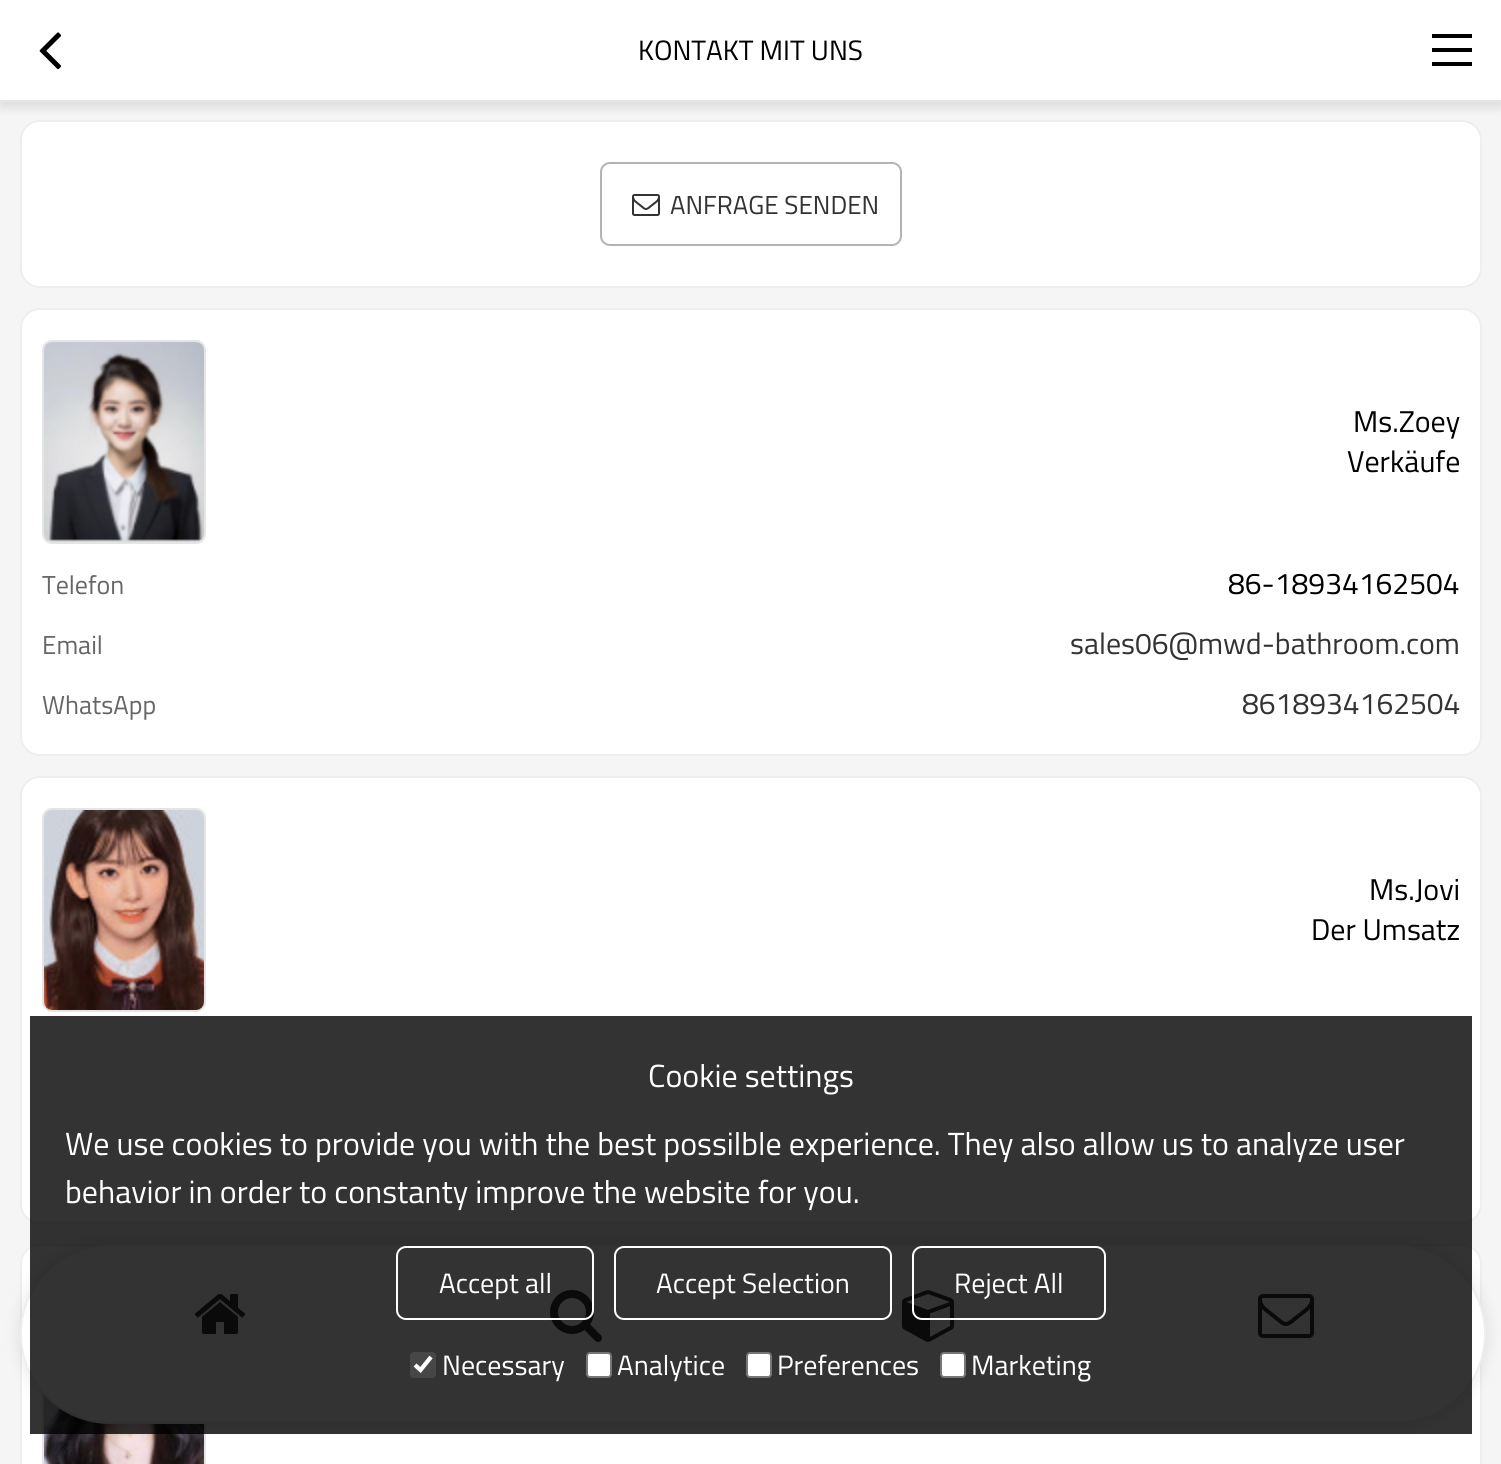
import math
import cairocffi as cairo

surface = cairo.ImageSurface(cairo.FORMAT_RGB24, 1501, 1464)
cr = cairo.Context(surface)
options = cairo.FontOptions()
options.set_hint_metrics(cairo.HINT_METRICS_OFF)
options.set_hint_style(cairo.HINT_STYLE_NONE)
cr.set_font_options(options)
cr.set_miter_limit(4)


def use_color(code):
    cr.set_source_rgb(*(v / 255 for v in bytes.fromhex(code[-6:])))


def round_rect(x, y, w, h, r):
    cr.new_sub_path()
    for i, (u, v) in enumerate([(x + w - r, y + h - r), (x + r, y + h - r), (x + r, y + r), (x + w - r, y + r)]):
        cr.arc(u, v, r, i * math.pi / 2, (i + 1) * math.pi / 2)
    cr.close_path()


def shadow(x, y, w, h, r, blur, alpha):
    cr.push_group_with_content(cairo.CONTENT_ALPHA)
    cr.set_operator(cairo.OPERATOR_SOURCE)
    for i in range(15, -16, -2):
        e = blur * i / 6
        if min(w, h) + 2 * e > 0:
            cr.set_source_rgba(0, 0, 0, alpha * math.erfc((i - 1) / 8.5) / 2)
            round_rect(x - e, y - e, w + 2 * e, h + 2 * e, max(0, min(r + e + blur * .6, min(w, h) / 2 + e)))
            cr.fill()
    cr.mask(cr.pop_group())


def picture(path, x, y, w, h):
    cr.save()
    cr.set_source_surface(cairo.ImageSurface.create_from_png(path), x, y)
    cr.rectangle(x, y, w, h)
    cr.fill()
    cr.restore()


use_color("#f5f5f5")
cr.paint()
use_color("#ffffff")
round_rect(21, 121, 1460, 166, 19)
cr.fill_preserve()
use_color("#eeeeee")
cr.stroke()
use_color("#000000")
shadow(0, 6, 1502, 102, 0, 5, 0.1)
use_color("#ffffff")
cr.rectangle(0, 0, 1501, 100)
cr.fill()
use_color("#e5e5e5")
cr.rectangle(0, 100, 1501, 2)
cr.fill()
picture("img1.png", 39, 32, 23, 38)
cr.select_font_face("Titillium Web")
cr.set_font_size(28)
use_color("#000000")
cr.move_to(638, 60)
cr.show_text("KONTAKT MIT UNS")
cr.rectangle(1432, 34, 40, 4)
cr.fill()
cr.rectangle(1432, 48, 40, 4)
cr.fill()
cr.rectangle(1432, 62, 40, 4)
cr.fill()
round_rect(601, 163, 300, 82, 9)
use_color("#b3b3b3")
cr.stroke()
picture("img2.png", 632, 194, 28, 22)
cr.set_font_size(26)
use_color("#333333")
cr.move_to(670, 214)
cr.show_text("ANFRAGE SENDEN")
use_color("#ffffff")
round_rect(21, 309, 1460, 446, 19)
cr.fill_preserve()
use_color("#eeeeee")
cr.stroke()
round_rect(43, 341, 162, 202, 9)
use_color("#e5e5e5")
cr.stroke()
picture("img3.png", 44, 342, 160, 200)
cr.set_font_size(30)
use_color("#000000")
cr.move_to(1353, 432)
cr.show_text("Ms.Zoey")
cr.move_to(1347, 472)
cr.show_text("Verkäufe")
cr.set_font_size(26)
use_color("#666666")
cr.move_to(42, 594)
cr.show_text("Telefon")
cr.set_font_size(30)
use_color("#000000")
cr.move_to(1228, 594)
cr.show_text("86-18934162504")
cr.set_font_size(26)
use_color("#666666")
cr.move_to(42, 654)
cr.show_text("Email")
cr.set_font_size(30)
use_color("#333333")
cr.move_to(1070, 654)
cr.show_text("sales06@mwd-bathroom.com")
cr.set_font_size(26)
use_color("#666666")
cr.move_to(42, 714)
cr.show_text("WhatsApp")
cr.set_font_size(30)
use_color("#333333")
cr.move_to(1242, 714)
cr.show_text("8618934162504")
use_color("#ffffff")
round_rect(21, 777, 1460, 446, 19)
cr.fill_preserve()
use_color("#eeeeee")
cr.stroke()
round_rect(43, 809, 162, 202, 9)
use_color("#e5e5e5")
cr.stroke()
picture("img4.png", 44, 810, 160, 200)
use_color("#000000")
cr.move_to(1369, 900)
cr.show_text("Ms.Jovi")
cr.move_to(1311, 940)
cr.show_text("Der Umsatz")
use_color("#ffffff")
round_rect(21, 1245, 1460, 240, 19)
cr.fill_preserve()
use_color("#eeeeee")
cr.stroke()
cr.rectangle(43, 1277, 162, 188)
use_color("#e5e5e5")
cr.stroke()
picture("img5.png", 44, 1395, 160, 69)
use_color("#000000")
shadow(20, 1244, 1466, 180, 90, 8, 0.1)
use_color("#ffffff")
round_rect(21, 1245, 1464, 178, 89)
cr.fill_preserve()
use_color("#eeeeee")
cr.stroke()
picture("img6.png", 194, 1293, 52, 41)
picture("img7.png", 550, 1290, 52, 52)
picture("img8.png", 902, 1290, 52, 52)
picture("img9.png", 1258, 1294, 56, 44)
cr.set_source_rgba(0, 0, 0, 0.8)
cr.rectangle(30, 1016, 1442, 418)
cr.fill()
cr.set_font_size(32)
use_color("#ffffff")
cr.move_to(648, 1087)
cr.show_text("Cookie settings")
cr.move_to(65, 1155)
cr.show_text("We use cookies to provide you with the best possilble experience. They also allow us to analyze user")
cr.move_to(65, 1203)
cr.show_text("behavior in order to constanty improve the website for you.")
round_rect(397, 1247, 196, 72, 9)
cr.stroke()
cr.set_font_size(28)
cr.move_to(439, 1293)
cr.show_text("Accept all")
round_rect(615, 1247, 276, 72, 9)
cr.stroke()
cr.move_to(656, 1293)
cr.show_text("Accept Selection")
round_rect(913, 1247, 192, 72, 9)
cr.stroke()
cr.move_to(954, 1293)
cr.show_text("Reject All")
use_color("#474747")
round_rect(410, 1352, 26, 26, 4)
cr.fill()
cr.new_path()
cr.move_to(415, 1365)
cr.line_to(420.5, 1370)
cr.line_to(431, 1357)
use_color("#ffffff")
cr.set_line_width(4.2)
cr.stroke()
cr.move_to(442, 1375)
cr.show_text("Necessary")
round_rect(587, 1353, 24, 24, 3)
cr.fill_preserve()
use_color("#767676")
cr.set_line_width(2)
cr.stroke()
use_color("#ffffff")
cr.move_to(617, 1375)
cr.show_text("Analytice")
round_rect(747, 1353, 24, 24, 3)
cr.fill_preserve()
use_color("#767676")
cr.stroke()
use_color("#ffffff")
cr.move_to(777, 1375)
cr.show_text("Preferences")
round_rect(941, 1353, 24, 24, 3)
cr.fill_preserve()
use_color("#767676")
cr.stroke()
use_color("#ffffff")
cr.move_to(971, 1375)
cr.show_text("Marketing")
surface.write_to_png("result.png")
